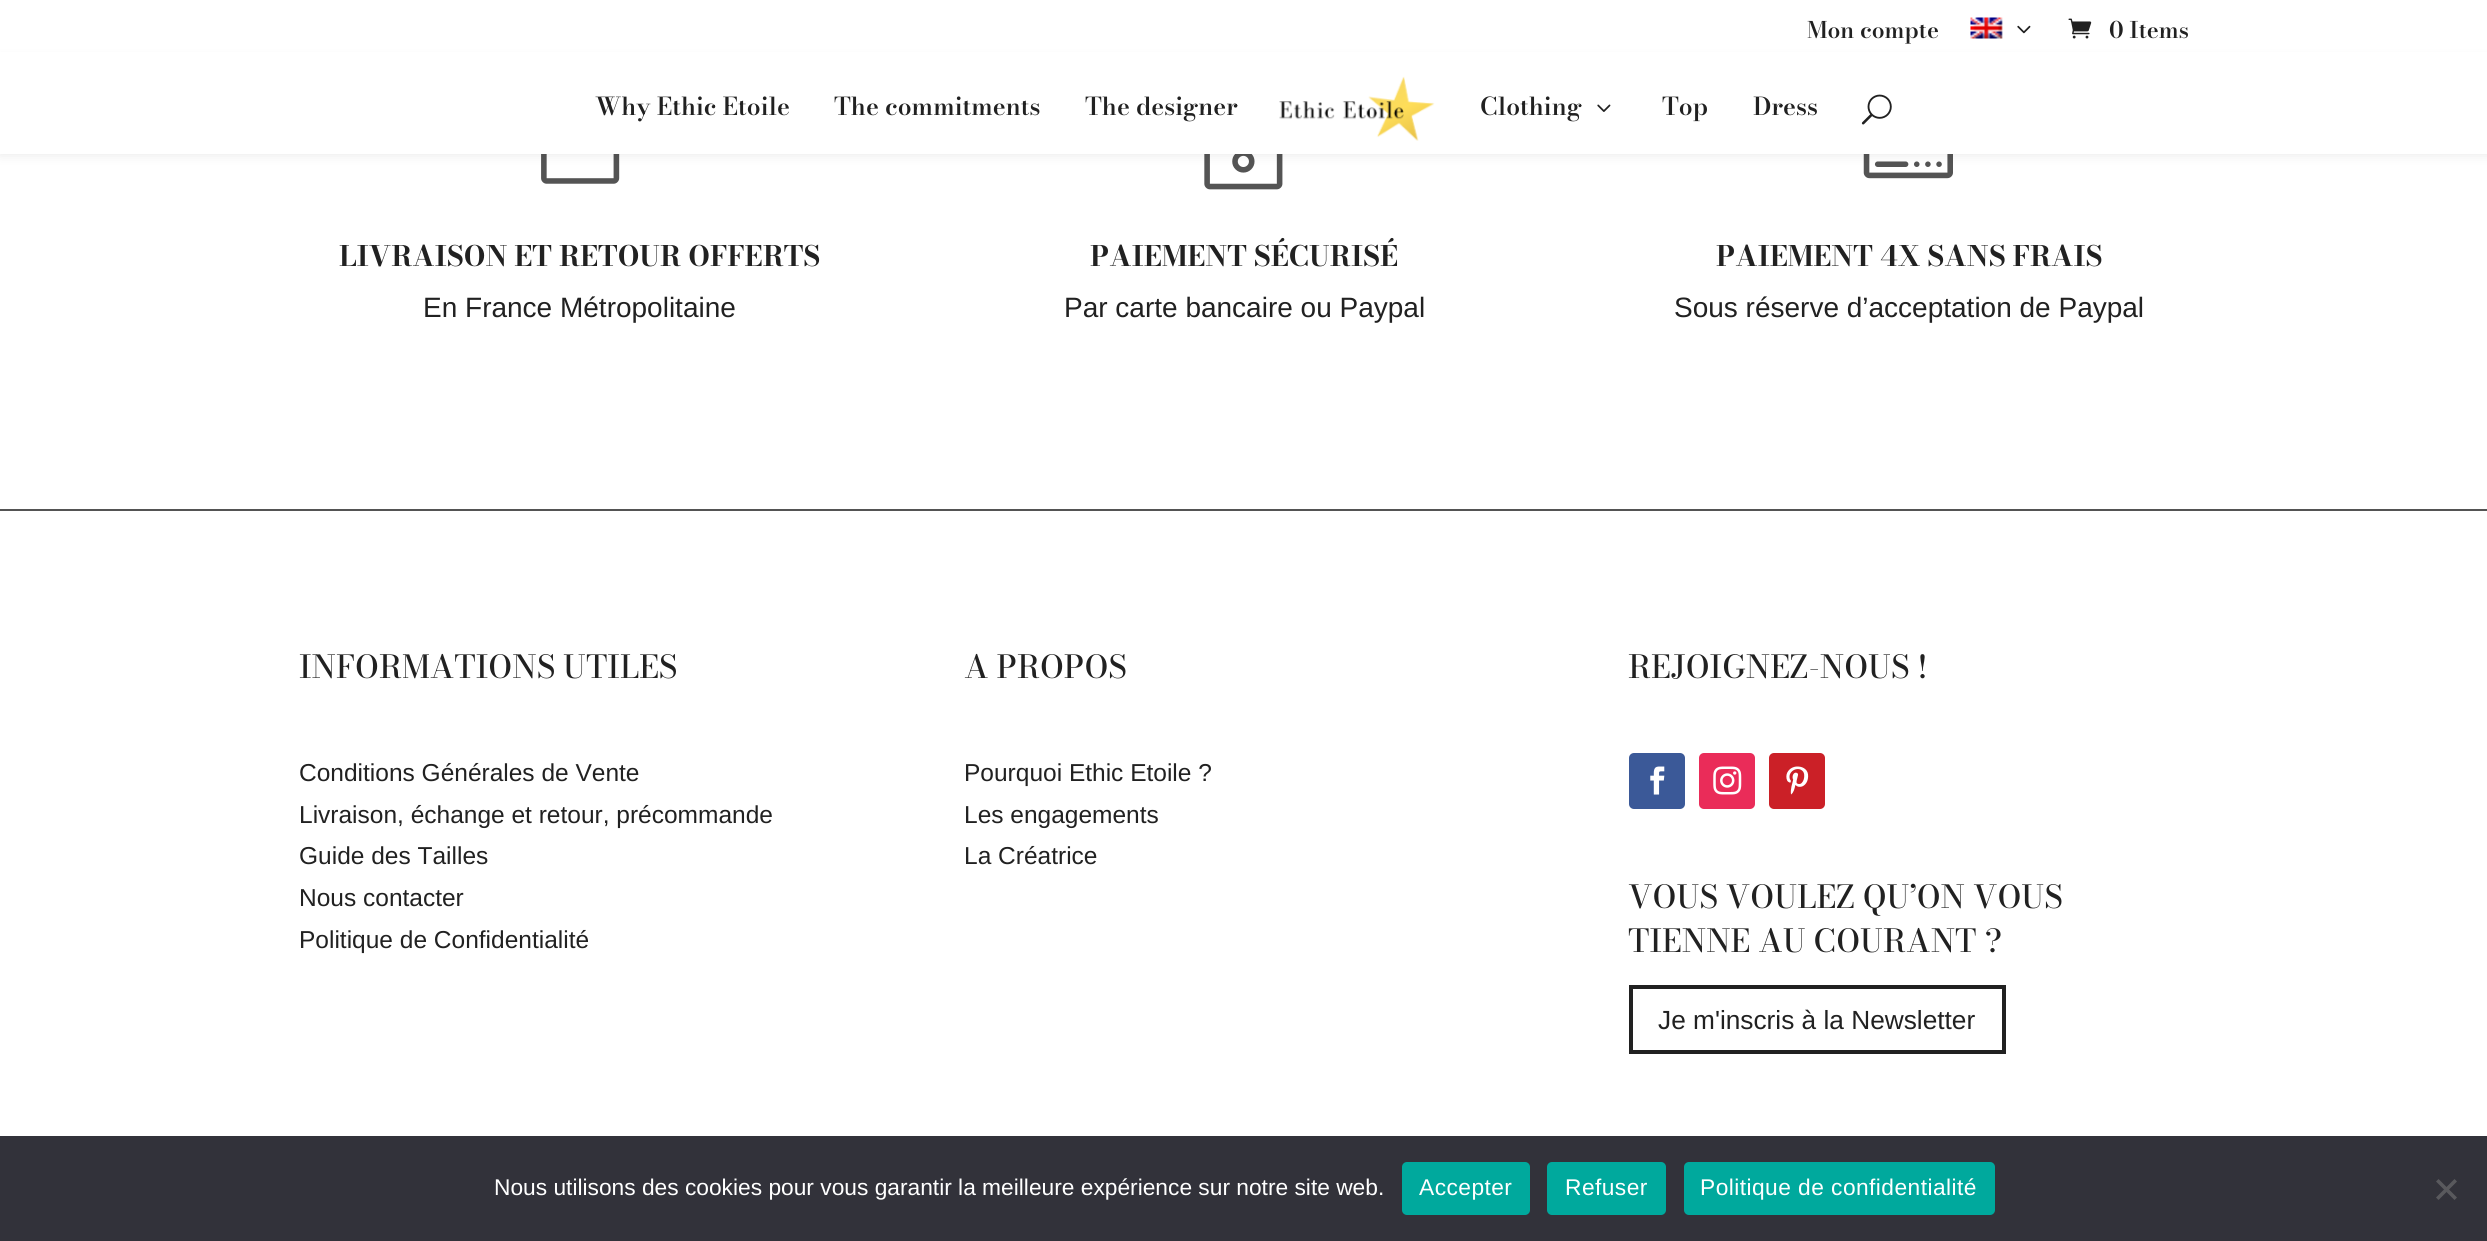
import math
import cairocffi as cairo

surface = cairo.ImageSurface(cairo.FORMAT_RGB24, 2487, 1241)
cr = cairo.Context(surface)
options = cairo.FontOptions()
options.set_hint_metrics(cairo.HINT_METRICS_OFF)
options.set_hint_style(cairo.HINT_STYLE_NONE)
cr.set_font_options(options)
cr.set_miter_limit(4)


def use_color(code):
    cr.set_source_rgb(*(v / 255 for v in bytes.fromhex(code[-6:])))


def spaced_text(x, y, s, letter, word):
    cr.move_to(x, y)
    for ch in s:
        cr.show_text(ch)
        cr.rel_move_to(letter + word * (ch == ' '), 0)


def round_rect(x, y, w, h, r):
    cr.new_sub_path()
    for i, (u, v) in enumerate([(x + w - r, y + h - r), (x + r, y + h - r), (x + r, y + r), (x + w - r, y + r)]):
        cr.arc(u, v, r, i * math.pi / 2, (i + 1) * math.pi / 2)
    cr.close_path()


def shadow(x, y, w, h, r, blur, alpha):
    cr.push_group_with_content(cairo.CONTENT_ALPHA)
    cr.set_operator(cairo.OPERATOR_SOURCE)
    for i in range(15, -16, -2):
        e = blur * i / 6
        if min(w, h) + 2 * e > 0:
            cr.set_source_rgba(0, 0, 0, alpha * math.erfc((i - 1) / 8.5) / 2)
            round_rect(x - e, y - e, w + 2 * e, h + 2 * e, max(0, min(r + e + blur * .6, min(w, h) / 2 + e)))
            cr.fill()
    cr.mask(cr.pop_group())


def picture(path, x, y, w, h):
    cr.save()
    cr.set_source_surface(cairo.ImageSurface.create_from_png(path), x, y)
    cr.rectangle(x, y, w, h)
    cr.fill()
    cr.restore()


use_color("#ffffff")
cr.paint()
picture("img7.png", 541, 154, 79, 30)
picture("img8.png", 1204, 154, 79, 36)
picture("img9.png", 1863, 154, 90, 25)
use_color("#000000")
shadow(0, 60, 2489, 94, 0, 6, 0.1)
cr.select_font_face("Bodoni Moda SemiBold")
cr.set_font_size(22.75)
use_color("#212121")
cr.move_to(1807, 38)
cr.show_text("Mon compte")
picture("img1.png", 1970, 17, 33, 22)
picture("img2.png", 2017, 25, 14, 9)
picture("img3.png", 2068, 18, 24, 21)
cr.move_to(2109, 38)
cr.show_text("0 Items")
use_color("#ffffff")
cr.rectangle(0, 52, 2487, 102)
cr.fill()
cr.set_font_size(24.5)
use_color("#212121")
cr.move_to(595, 115)
cr.show_text("Why Ethic Etoile")
cr.move_to(834, 115)
cr.show_text("The commitments")
cr.move_to(1085, 115)
cr.show_text("The designer")
picture("img4.png", 1279, 76, 156, 65)
cr.move_to(1480, 115)
cr.show_text("Clothing")
picture("img5.png", 1597, 104, 14, 8)
cr.move_to(1662, 115)
cr.show_text("Top")
cr.move_to(1753, 115)
cr.show_text("Dress")
picture("img6.png", 1861, 94, 31, 31)
use_color("#545454")
cr.rectangle(0, 509, 2487, 2)
cr.fill()
cr.select_font_face("Bodoni Moda", cairo.FONT_SLANT_NORMAL, cairo.FONT_WEIGHT_BOLD)
cr.set_font_size(28)
use_color("#212121")
cr.move_to(339, 266)
cr.show_text("LIVRAISON ET RETOUR OFFERTS")
cr.select_font_face("Liberation Sans")
cr.move_to(423, 317)
cr.show_text("En France Métropolitaine")
cr.select_font_face("Bodoni Moda", cairo.FONT_SLANT_NORMAL, cairo.FONT_WEIGHT_BOLD)
cr.move_to(1090, 266)
cr.show_text("PAIEMENT SÉCURISÉ")
cr.select_font_face("Liberation Sans")
cr.move_to(1064, 317)
cr.show_text("Par carte bancaire ou Paypal")
cr.select_font_face("Bodoni Moda", cairo.FONT_SLANT_NORMAL, cairo.FONT_WEIGHT_BOLD)
cr.move_to(1716, 266)
cr.show_text("PAIEMENT 4X SANS FRAIS")
cr.select_font_face("Liberation Sans")
cr.move_to(1674, 317)
cr.show_text("Sous réserve d’acceptation de Paypal")
cr.select_font_face("Bodoni Moda Medium")
cr.set_font_size(31.5)
cr.move_to(299, 678)
cr.show_text("INFORMATIONS UTILES")
cr.select_font_face("Liberation Sans")
cr.set_font_size(24.5)
cr.move_to(299, 781)
cr.show_text("Conditions Générales de Vente")
cr.move_to(299, 823)
cr.show_text("Livraison, échange et retour, précommande")
cr.move_to(299, 864)
cr.show_text("Guide des Tailles")
cr.move_to(299, 906)
cr.show_text("Nous contacter")
cr.move_to(299, 948)
cr.show_text("Politique de Confidentialité")
cr.select_font_face("Bodoni Moda Medium")
cr.set_font_size(31.5)
cr.move_to(964, 678)
cr.show_text("A PROPOS")
cr.select_font_face("Liberation Sans")
cr.set_font_size(24.5)
cr.move_to(964, 781)
cr.show_text("Pourquoi Ethic Etoile ?")
cr.move_to(964, 823)
cr.show_text("Les engagements")
cr.move_to(964, 864)
cr.show_text("La Créatrice")
cr.select_font_face("Bodoni Moda Medium")
cr.set_font_size(31.5)
cr.move_to(1628, 678)
cr.show_text("REJOIGNEZ-NOUS !")
use_color("#3b5998")
round_rect(1629, 753, 56, 56, 5)
cr.fill()
picture("img10.png", 1650, 766, 15, 29)
use_color("#ea2c59")
round_rect(1699, 753, 56, 56, 5)
cr.fill()
picture("img11.png", 1713, 766, 29, 29)
use_color("#cb2027")
round_rect(1769, 753, 56, 56, 5)
cr.fill()
picture("img12.png", 1786, 766, 23, 29)
use_color("#212121")
cr.move_to(1628, 908)
cr.show_text("VOUS VOULEZ QU’ON VOUS")
cr.move_to(1628, 952)
cr.show_text("TIENNE AU COURANT ?")
cr.rectangle(1631, 987, 373, 65)
cr.set_line_width(4)
cr.stroke()
cr.select_font_face("Liberation Sans")
cr.set_font_size(26.25)
cr.move_to(1658, 1029)
cr.show_text("Je m'inscris à la Newsletter")
use_color("#32323a")
cr.rectangle(0, 1136, 2487, 105)
cr.fill()
cr.set_font_size(22.75)
use_color("#ffffff")
cr.move_to(494, 1195)
cr.show_text("Nous utilisons des cookies pour vous garantir la meilleure expérience sur notre site web.")
use_color("#00a99d")
round_rect(1402, 1162, 128, 53, 5)
cr.fill()
use_color("#ffffff")
spaced_text(1419, 1195, "Accepter", 0.45, 0)
use_color("#00a99d")
round_rect(1547, 1162, 119, 53, 5)
cr.fill()
use_color("#ffffff")
spaced_text(1565, 1195, "Refuser", 0.45, 0)
use_color("#00a99d")
round_rect(1684, 1162, 311, 53, 5)
cr.fill()
use_color("#ffffff")
spaced_text(1700, 1195, "Politique de confidentialité", 0.45, 0)
use_color("#59595d")
cr.new_path()
cr.move_to(2454.5, 1179)
cr.line_to(2457, 1181.5)
cr.line_to(2438.5, 1200)
cr.line_to(2436, 1197.5)
cr.close_path()
cr.fill()
cr.new_path()
cr.move_to(2436, 1181.5)
cr.line_to(2438.5, 1179)
cr.line_to(2457, 1197.5)
cr.line_to(2454.5, 1200)
cr.close_path()
cr.fill()
surface.write_to_png("result.png")
